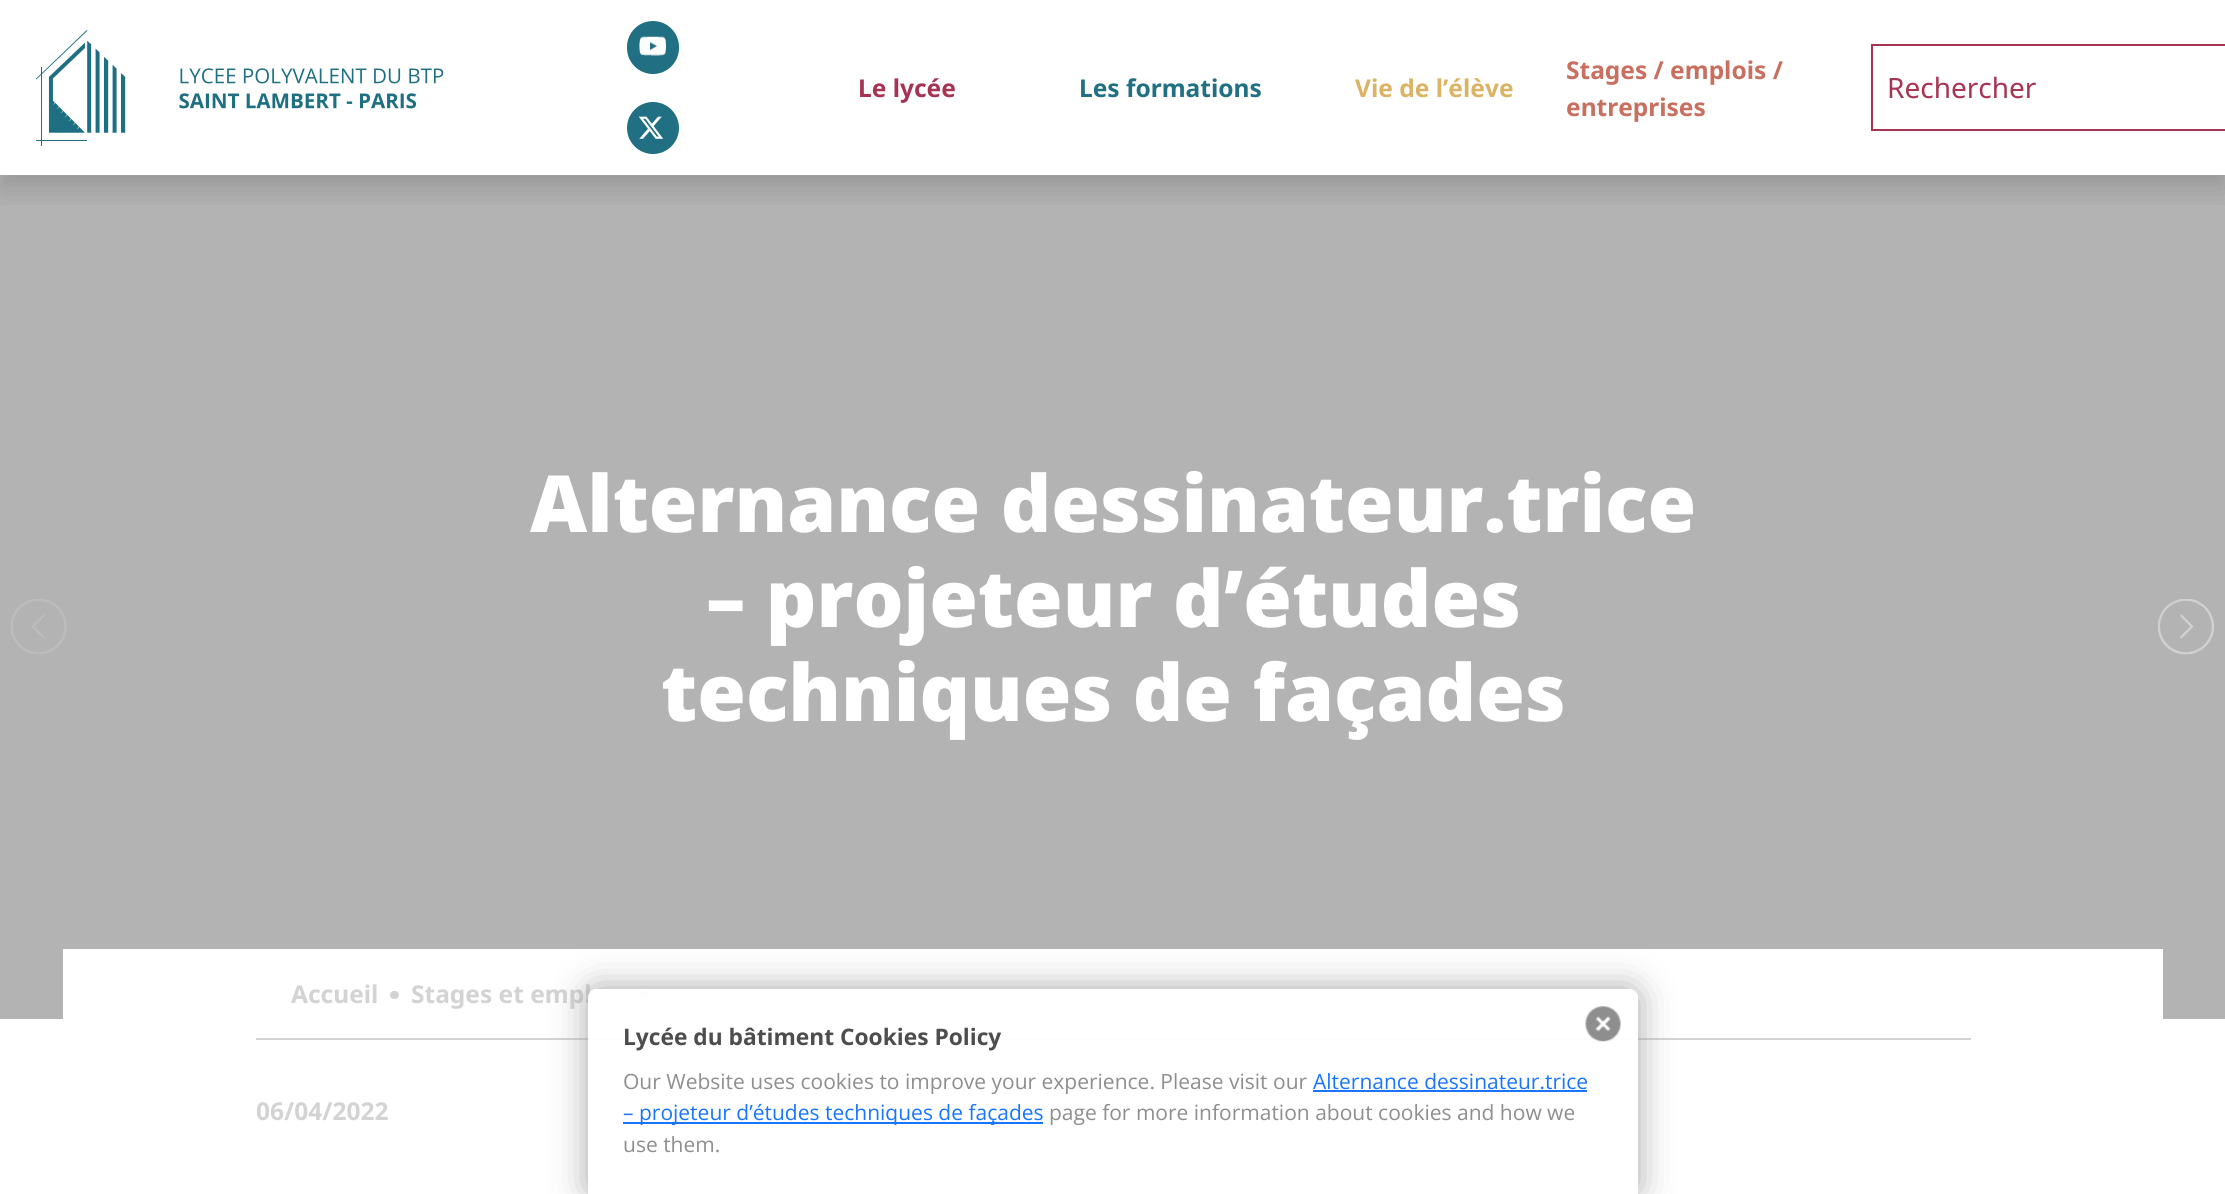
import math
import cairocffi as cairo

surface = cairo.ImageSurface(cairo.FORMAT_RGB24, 2225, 1194)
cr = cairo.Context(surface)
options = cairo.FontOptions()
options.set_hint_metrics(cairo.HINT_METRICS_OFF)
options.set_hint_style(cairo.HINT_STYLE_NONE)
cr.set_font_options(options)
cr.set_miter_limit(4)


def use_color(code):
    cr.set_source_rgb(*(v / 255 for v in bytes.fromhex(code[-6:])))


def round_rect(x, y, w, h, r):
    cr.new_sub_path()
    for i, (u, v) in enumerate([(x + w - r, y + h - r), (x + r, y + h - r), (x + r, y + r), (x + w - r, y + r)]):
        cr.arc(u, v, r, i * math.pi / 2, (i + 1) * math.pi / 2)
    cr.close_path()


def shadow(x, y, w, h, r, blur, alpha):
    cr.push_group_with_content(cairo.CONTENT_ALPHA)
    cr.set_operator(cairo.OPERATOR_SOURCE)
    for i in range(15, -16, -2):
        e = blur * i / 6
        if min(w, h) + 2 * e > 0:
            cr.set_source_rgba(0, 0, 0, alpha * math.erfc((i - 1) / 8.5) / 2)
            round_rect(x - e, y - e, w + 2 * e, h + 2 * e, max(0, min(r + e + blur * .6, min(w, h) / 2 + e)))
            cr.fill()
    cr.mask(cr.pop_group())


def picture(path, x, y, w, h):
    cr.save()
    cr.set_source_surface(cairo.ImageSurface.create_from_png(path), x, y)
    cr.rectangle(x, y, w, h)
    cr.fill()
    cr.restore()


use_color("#ffffff")
cr.paint()
use_color("#b3b3b3")
cr.rectangle(0, 175, 2225, 844)
cr.fill()
cr.save()
cr.rectangle(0, 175, 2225, 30)
cr.clip()
use_color("#000000")
shadow(0, 14, 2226, 175, 0, 14, 0.15)
cr.restore()
picture("img1.png", 36, 30, 408, 116)
use_color("#216f83")
round_rect(627, 21, 52, 53, 26)
cr.fill()
picture("img2.png", 639, 36, 27, 20)
cr.arc(653, 128, 26, 0, 2 * math.pi)
cr.fill()
picture("img3.png", 638, 116, 26, 23)
cr.select_font_face("Noto Sans", cairo.FONT_SLANT_NORMAL, cairo.FONT_WEIGHT_BOLD)
cr.set_font_size(24.5)
use_color("#a73352")
cr.move_to(858, 97)
cr.show_text("Le lycée")
use_color("#216f83")
cr.move_to(1079, 97)
cr.show_text("Les formations")
use_color("#dab464")
cr.move_to(1355, 97)
cr.show_text("Vie de l’élève")
use_color("#c86f60")
cr.move_to(1566, 79)
cr.show_text("Stages / emplois /")
cr.move_to(1566, 116)
cr.show_text("entreprises")
cr.rectangle(1872, 45, 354, 85)
use_color("#a73352")
cr.stroke()
cr.select_font_face("Noto Sans")
cr.set_font_size(28)
cr.move_to(1887, 98)
cr.show_text("Rechercher")
picture("img4.png", 11, 599, 56, 55)
picture("img5.png", 2158, 599, 56, 56)
cr.select_font_face("Open Sans ExtraBold")
cr.set_font_size(78.75)
use_color("#ffffff")
cr.move_to(530, 532)
cr.show_text("Alternance dessinateur.trice")
cr.move_to(706, 627)
cr.show_text("– projeteur d’études")
cr.move_to(661, 721)
cr.show_text("techniques de façades")
cr.rectangle(63, 949, 2100, 70)
cr.fill()
use_color("#d3d3d3")
cr.rectangle(256, 1038, 1715, 2)
cr.fill()
cr.select_font_face("Noto Sans", cairo.FONT_SLANT_NORMAL, cairo.FONT_WEIGHT_BOLD)
cr.set_font_size(24.5)
cr.move_to(291, 1003)
cr.show_text("Accueil")
round_rect(390, 991, 9, 8, 4)
cr.fill()
cr.move_to(411, 1003)
cr.show_text("Stages et empl")
round_rect(639, 991, 9, 8, 4)
cr.fill()
cr.move_to(256, 1120)
cr.show_text("06/04/2022")
cr.save()
cr.set_fill_rule(cairo.FILL_RULE_EVEN_ODD)
cr.new_path()
cr.move_to(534, 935)
cr.line_to(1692, 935)
cr.line_to(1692, 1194)
cr.line_to(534, 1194)
cr.close_path()
cr.move_to(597, 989)
cr.line_to(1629, 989)
cr.curve_to(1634, 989, 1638, 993, 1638, 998)
cr.line_to(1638, 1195)
cr.line_to(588, 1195)
cr.line_to(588, 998)
cr.curve_to(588, 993, 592, 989, 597, 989)
cr.close_path()
cr.clip()
use_color("#a1a1a1")
shadow(588, 989, 1050, 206, 9, 17.5, 0.95)
cr.restore()
cr.set_source_rgba(1, 1, 1, 0.95)
cr.new_path()
cr.move_to(597, 989)
cr.line_to(1629, 989)
cr.curve_to(1634, 989, 1638, 993, 1638, 998)
cr.line_to(1638, 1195)
cr.line_to(588, 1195)
cr.line_to(588, 998)
cr.curve_to(588, 993, 592, 989, 597, 989)
cr.close_path()
cr.fill()
cr.select_font_face("Open Sans", cairo.FONT_SLANT_NORMAL, cairo.FONT_WEIGHT_BOLD)
cr.set_font_size(22.75)
use_color("#4d4d4d")
cr.move_to(623, 1045)
cr.show_text("Lycée du bâtiment Cookies Policy")
picture("img6.png", 1585, 1006, 36, 36)
cr.select_font_face("Open Sans")
cr.set_font_size(21)
use_color("#8e8e8e")
cr.move_to(623, 1089)
cr.show_text("Our Website uses cookies to improve your experience. Please visit our")
use_color("#1975fd")
cr.move_to(1313, 1089)
cr.show_text("Alternance dessinateur.trice")
cr.rectangle(1313, 1090, 274, 2)
cr.fill()
cr.rectangle(623, 1122, 420, 2)
cr.fill()
cr.move_to(623, 1120)
cr.show_text("– projeteur d’études techniques de façades")
use_color("#8e8e8e")
cr.move_to(1049, 1120)
cr.show_text("page for more information about cookies and how we")
cr.move_to(623, 1152)
cr.show_text("use them.")
surface.write_to_png("result.png")
